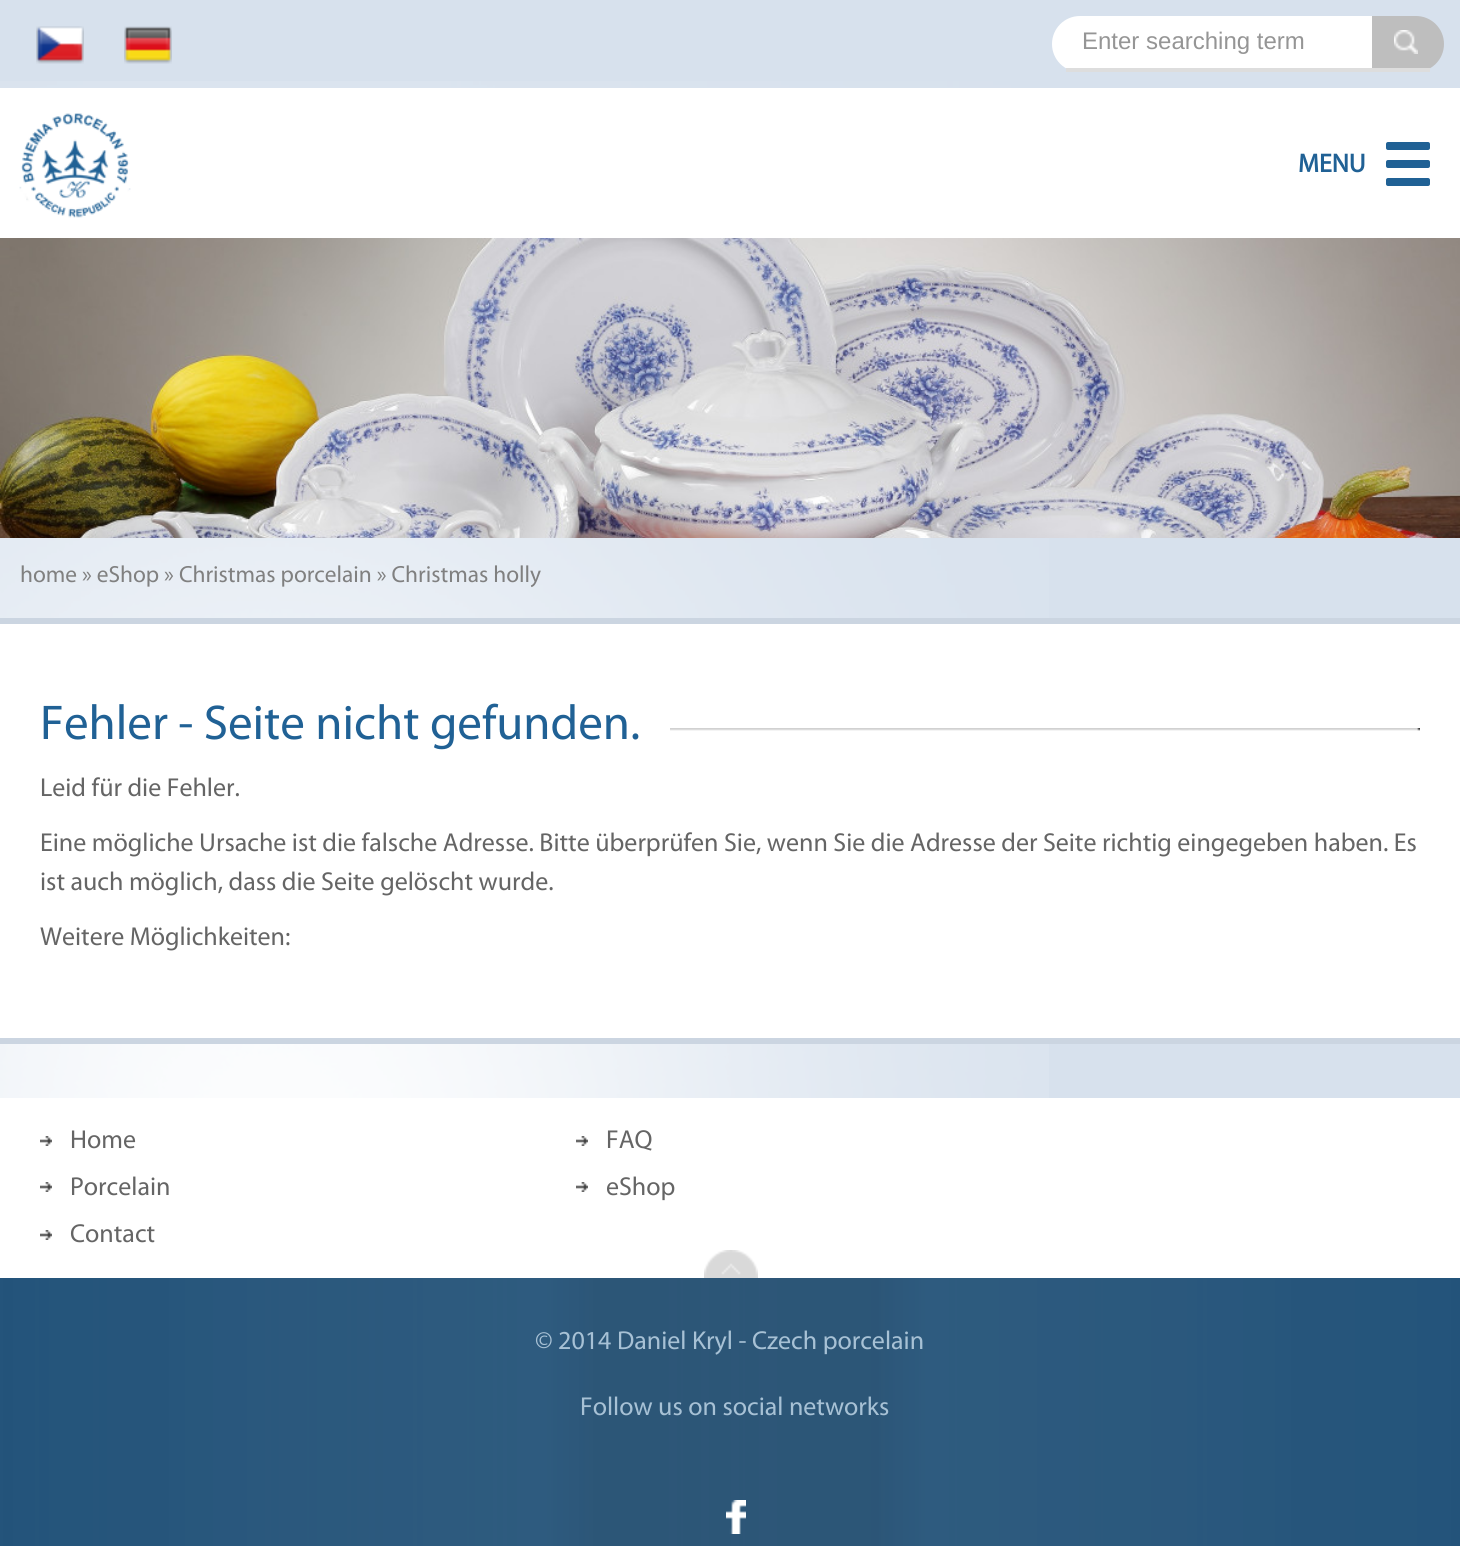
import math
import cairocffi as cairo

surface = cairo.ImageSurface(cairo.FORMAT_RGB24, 1460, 1546)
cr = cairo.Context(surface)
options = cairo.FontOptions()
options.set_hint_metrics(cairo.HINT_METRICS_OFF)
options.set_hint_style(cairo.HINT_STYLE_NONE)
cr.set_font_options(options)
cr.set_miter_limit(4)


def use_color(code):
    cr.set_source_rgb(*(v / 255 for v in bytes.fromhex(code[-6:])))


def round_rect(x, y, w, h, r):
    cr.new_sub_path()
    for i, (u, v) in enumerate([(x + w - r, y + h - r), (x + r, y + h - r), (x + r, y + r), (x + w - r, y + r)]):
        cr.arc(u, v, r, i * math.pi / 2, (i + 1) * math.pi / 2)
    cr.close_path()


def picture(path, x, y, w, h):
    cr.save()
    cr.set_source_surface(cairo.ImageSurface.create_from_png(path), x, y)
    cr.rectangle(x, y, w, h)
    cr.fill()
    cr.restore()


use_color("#d7e1ed")
cr.paint()
picture("img1.png", 0, 81, 1049, 1017)
picture("img2.png", 36, 26, 48, 38)
picture("img3.png", 124, 26, 48, 38)
use_color("#ffffff")
cr.new_path()
cr.move_to(1080, 16)
cr.line_to(1372, 16)
cr.line_to(1372, 72)
cr.line_to(1080, 72)
cr.curve_to(1064.5, 72, 1052, 59.5, 1052, 44)
cr.curve_to(1052, 28.5, 1064.5, 16, 1080, 16)
cr.close_path()
cr.fill()
use_color("#dddddd")
cr.rectangle(1066, 68, 306, 4)
cr.fill()
cr.select_font_face("Liberation Sans")
cr.set_font_size(24)
use_color("#959595")
cr.move_to(1082, 49)
cr.show_text("Enter searching term")
use_color("#bebebe")
cr.new_path()
cr.move_to(1372, 16)
cr.line_to(1416, 16)
cr.curve_to(1431.5, 16, 1444, 28.5, 1444, 44)
cr.curve_to(1444, 59.5, 1431.5, 72, 1416, 72)
cr.line_to(1372, 72)
cr.close_path()
cr.fill()
picture("img4.png", 1394, 30, 24, 24)
use_color("#dddddd")
cr.rectangle(1372, 68, 58, 4)
cr.fill()
use_color("#ffffff")
cr.rectangle(0, 88, 1460, 150)
cr.fill()
picture("img5.png", 19, 113, 112, 105)
picture("img6.png", 0, 238, 1460, 300)
use_color("#206195")
round_rect(1386, 142, 44, 8, 2)
cr.fill()
cr.select_font_face("Myriad", cairo.FONT_SLANT_NORMAL, cairo.FONT_WEIGHT_BOLD)
cr.set_font_size(26)
cr.move_to(1298, 172)
cr.show_text("MENU")
round_rect(1386, 160, 44, 8, 2)
cr.fill()
round_rect(1386, 178, 44, 8, 2)
cr.fill()
use_color("#cbd5e1")
cr.rectangle(0, 618, 1460, 6)
cr.fill()
cr.select_font_face("Myriad")
cr.set_font_size(23.4)
use_color("#808080")
cr.move_to(20, 582)
cr.show_text("home » eShop » Christmas porcelain » Christmas holly")
use_color("#ffffff")
cr.rectangle(0, 624, 1460, 414)
cr.fill()
use_color("#cbd5e1")
cr.rectangle(0, 1038, 1460, 6)
cr.fill()
picture("img7.png", 670, 728, 750, 3)
cr.set_font_size(49.1)
use_color("#206195")
cr.move_to(40, 739)
cr.show_text("Fehler - Seite nicht gefunden.")
cr.set_font_size(26)
use_color("#656565")
cr.move_to(40, 796)
cr.show_text("Leid für die Fehler.")
cr.move_to(40, 851)
cr.show_text("Eine mögliche Ursache ist die falsche Adresse. Bitte überprüfen Sie, wenn Sie die Adresse der Seite richtig eingegeben haben. Es")
cr.move_to(40, 890)
cr.show_text("ist auch möglich, dass die Seite gelöscht wurde.")
cr.move_to(40, 945)
cr.show_text("Weitere Möglichkeiten:")
use_color("#ffffff")
cr.rectangle(0, 1098, 1460, 180)
cr.fill()
picture("img8.png", 40, 1136, 12, 10)
use_color("#656565")
cr.move_to(70, 1148)
cr.show_text("Home")
picture("img8.png", 576, 1136, 12, 10)
cr.move_to(606, 1148)
cr.show_text("FAQ")
picture("img8.png", 40, 1182, 12, 10)
cr.move_to(70, 1195)
cr.show_text("Porcelain")
picture("img8.png", 576, 1182, 12, 10)
cr.move_to(606, 1195)
cr.show_text("eShop")
picture("img8.png", 40, 1230, 12, 10)
cr.move_to(70, 1242)
cr.show_text("Contact")
picture("img9.png", 0, 1278, 1460, 268)
picture("img10.png", 704, 1250, 54, 28)
use_color("#a7c1d5")
cr.move_to(535, 1349)
cr.show_text("© 2014 Daniel Kryl - Czech porcelain")
cr.move_to(580, 1415)
cr.show_text("Follow us on social networks")
picture("img11.png", 726, 1500, 20, 34)
surface.write_to_png("result.png")
